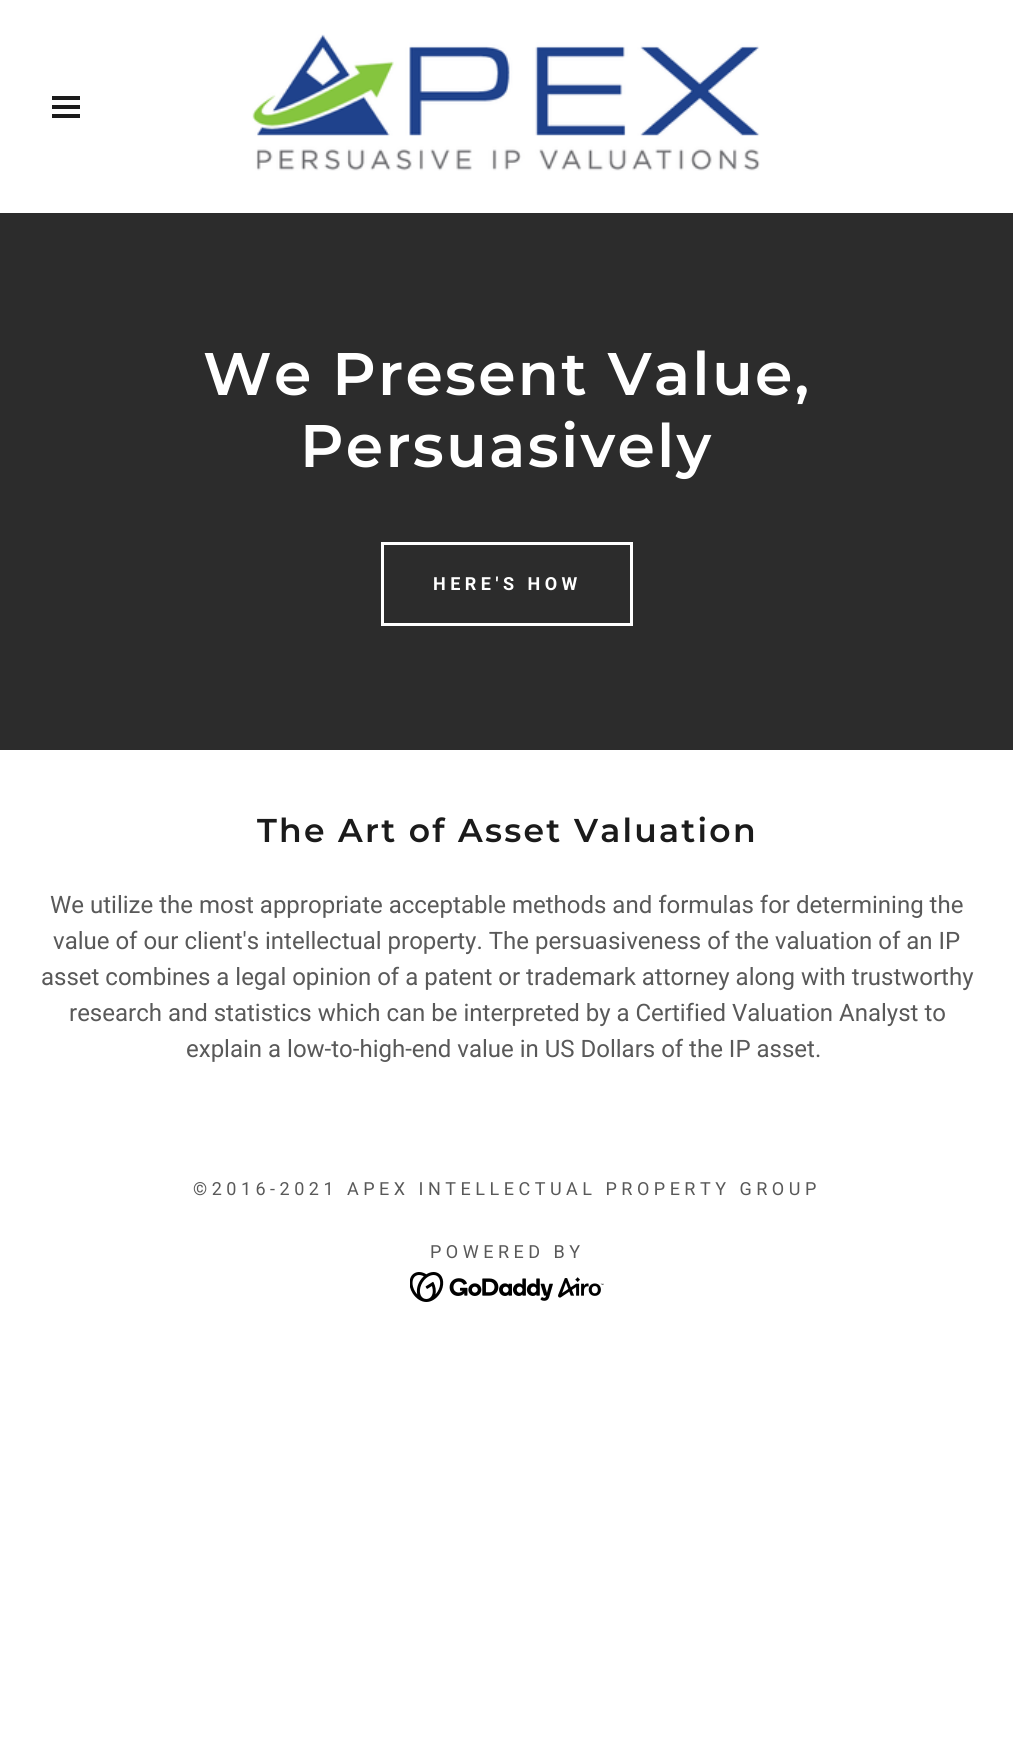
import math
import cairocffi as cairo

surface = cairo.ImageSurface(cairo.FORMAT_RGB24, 1013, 1763)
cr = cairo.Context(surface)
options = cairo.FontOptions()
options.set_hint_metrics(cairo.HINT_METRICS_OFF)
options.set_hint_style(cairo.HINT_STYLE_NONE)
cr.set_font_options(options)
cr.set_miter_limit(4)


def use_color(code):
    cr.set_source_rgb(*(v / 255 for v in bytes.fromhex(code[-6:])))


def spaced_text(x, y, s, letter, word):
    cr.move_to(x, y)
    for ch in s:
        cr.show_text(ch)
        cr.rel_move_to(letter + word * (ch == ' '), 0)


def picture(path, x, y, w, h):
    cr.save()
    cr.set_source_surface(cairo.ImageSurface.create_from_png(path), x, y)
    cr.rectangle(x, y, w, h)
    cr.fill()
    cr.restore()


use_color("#ffffff")
cr.paint()
use_color("#2c2c2c")
cr.rectangle(0, 213, 1013, 537)
cr.fill()
use_color("#1b1b1b")
cr.rectangle(52, 96, 28, 4)
cr.fill()
cr.rectangle(52, 105, 28, 4)
cr.fill()
cr.rectangle(52, 114, 28, 4)
cr.fill()
picture("img1.png", 252, 34, 508, 137)
cr.select_font_face("Montserrat SemiBold")
cr.set_font_size(60)
use_color("#ffffff")
spaced_text(203, 395, "We Present Value,", 2.25, 0)
spaced_text(300, 467, "Persuasively", 2.25, 0)
cr.rectangle(382.5, 543.5, 249, 81)
cr.set_line_width(3)
cr.stroke()
cr.select_font_face("Roboto", cairo.FONT_SLANT_NORMAL, cairo.FONT_WEIGHT_BOLD)
cr.set_font_size(18)
spaced_text(433, 590, "HERE'S HOW", 4.5, 0)
cr.select_font_face("Montserrat SemiBold")
cr.set_font_size(33)
use_color("#1b1b1b")
spaced_text(257, 842, "The Art of Asset Valuation", 2.25, 0)
cr.select_font_face("Roboto")
cr.set_font_size(24)
use_color("#595959")
cr.move_to(50, 913)
cr.show_text("We utilize the most appropriate acceptable methods and formulas for determining the")
cr.move_to(53, 949)
cr.show_text("value of our client's intellectual property. The persuasiveness of the valuation of an IP")
cr.move_to(41, 985)
cr.show_text("asset combines a legal opinion of a patent or trademark attorney along with trustworthy")
cr.move_to(69, 1021)
cr.show_text("research and statistics which can be interpreted by a Certified Valuation Analyst to")
cr.move_to(186, 1057)
cr.show_text("explain a low-to-high-end value in US Dollars of the IP asset.")
cr.set_font_size(18)
spaced_text(193, 1195, "©2016-2021 APEX INTELLECTUAL PROPERTY GROUP", 4.5, 0)
spaced_text(430, 1258, "POWERED BY", 4.5, 0)
picture("img2.png", 410, 1272, 194, 30)
surface.write_to_png("result.png")
